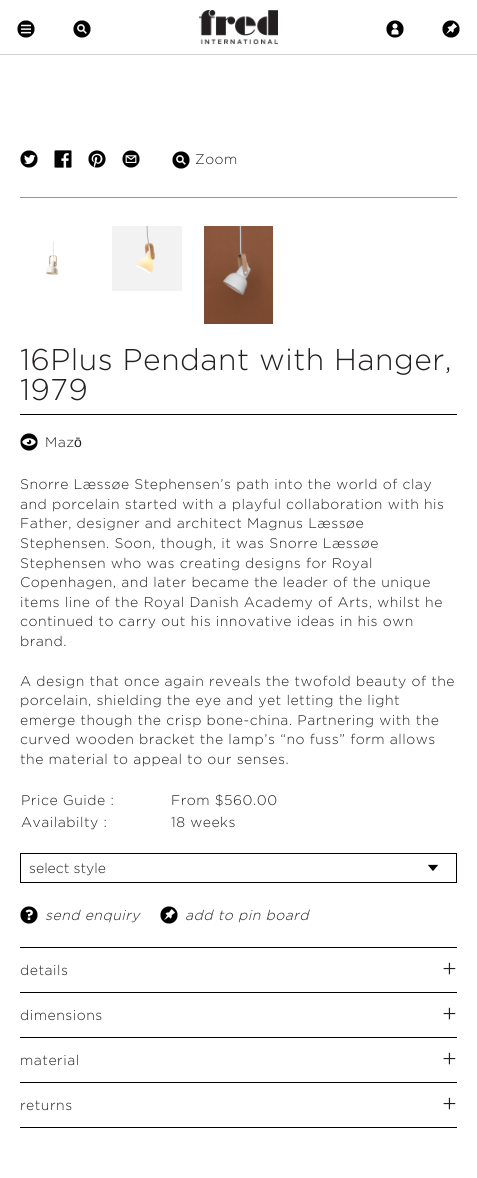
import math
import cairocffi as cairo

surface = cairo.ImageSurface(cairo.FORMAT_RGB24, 477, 1178)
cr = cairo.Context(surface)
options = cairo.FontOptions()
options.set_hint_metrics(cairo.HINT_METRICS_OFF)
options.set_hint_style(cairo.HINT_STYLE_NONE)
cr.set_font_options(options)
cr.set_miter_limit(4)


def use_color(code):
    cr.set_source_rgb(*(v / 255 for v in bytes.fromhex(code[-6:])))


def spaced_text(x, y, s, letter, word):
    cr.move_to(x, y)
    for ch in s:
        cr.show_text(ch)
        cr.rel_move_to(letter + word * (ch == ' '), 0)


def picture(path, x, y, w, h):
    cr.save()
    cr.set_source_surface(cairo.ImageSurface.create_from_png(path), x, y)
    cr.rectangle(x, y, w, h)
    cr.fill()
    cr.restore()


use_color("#ffffff")
cr.paint()
use_color("#d1d2d4")
cr.rectangle(0, 54, 477, 1)
cr.fill()
picture("img1.png", 17, 20, 18, 18)
picture("img2.png", 73, 20, 18, 18)
picture("img3.png", 199, 10, 79, 35)
picture("img4.png", 386, 20, 18, 18)
picture("img5.png", 442, 20, 18, 18)
use_color("#939598")
cr.rectangle(20, 197, 437, 1)
cr.fill()
picture("img6.png", 20, 150, 18, 18)
picture("img7.png", 54, 150, 18, 18)
picture("img8.png", 88, 150, 18, 18)
picture("img9.png", 122, 150, 18, 18)
picture("img2.png", 172, 151, 18, 18)
cr.select_font_face("Gotham Light")
cr.set_font_size(14)
use_color("#231f20")
spaced_text(195, 164, "Zoom", 0.5, 0)
picture("img10.png", 46, 241, 13, 34)
picture("img11.png", 112, 226, 70, 65)
picture("img12.png", 204, 226, 69, 98)
use_color("#000000")
cr.rectangle(20, 414, 437, 1)
cr.fill()
cr.set_font_size(30)
use_color("#231f20")
spaced_text(20, 370, "16Plus Pendant with Hanger,", 0.5, 0)
spaced_text(20, 400, "1979", 0.5, 0)
picture("img13.png", 20, 433, 18, 18)
cr.set_font_size(14)
spaced_text(45, 447, "Maz", 0.5, 0)
cr.select_font_face("Liberation Sans")
spaced_text(74, 447, "ō", 0.5, 0)
cr.select_font_face("Gotham Light")
spaced_text(20, 489, "Snorre Læssøe Stephensen’s path into the world of clay", 0.5, 0)
spaced_text(20, 509, "and porcelain started with a playful collaboration with his", 0.5, 0)
spaced_text(20, 528, "Father, designer and architect Magnus Læssøe", 0.5, 0)
spaced_text(20, 548, "Stephensen. Soon, though, it was Snorre Læssøe", 0.5, 0)
spaced_text(20, 568, "Stephensen who was creating designs for Royal", 0.5, 0)
spaced_text(20, 587, "Copenhagen, and later became the leader of the unique", 0.5, 0)
spaced_text(20, 607, "items line of the Royal Danish Academy of Arts, whilst he", 0.5, 0)
spaced_text(20, 626, "continued to carry out his innovative ideas in his own", 0.5, 0)
spaced_text(20, 646, "brand.", 0.5, 0)
spaced_text(20, 686, "A design that once again reveals the twofold beauty of the", 0.5, 0)
spaced_text(20, 705, "porcelain, shielding the eye and yet letting the light", 0.5, 0)
spaced_text(20, 725, "emerge though the crisp bone-china. Partnering with the", 0.5, 0)
spaced_text(20, 744, "curved wooden bracket the lamp’s “no fuss” form allows", 0.5, 0)
spaced_text(20, 764, "the material to appeal to our senses.", 0.5, 0)
spaced_text(21, 805, "Price Guide :", 0.5, 0)
spaced_text(171, 805, "From $560.00", 0.5, 0)
spaced_text(21, 827, "Availabilty :", 0.5, 0)
spaced_text(171, 827, "18 weeks", 0.5, 0)
picture("img14.png", 428, 864, 10, 7)
cr.rectangle(20.5, 853.5, 436, 29)
use_color("#000000")
cr.set_line_width(1)
cr.stroke()
use_color("#231f20")
cr.move_to(29, 873)
cr.show_text("select style")
picture("img15.png", 20, 906, 18, 18)
cr.select_font_face("Gotham Light", cairo.FONT_SLANT_ITALIC)
spaced_text(45, 920, "send enquiry", 0.5, 0)
picture("img5.png", 160, 906, 18, 18)
spaced_text(185, 920, "add to pin board", 0.5, 0)
use_color("#000000")
cr.rectangle(20, 947, 437, 1)
cr.fill()
cr.rectangle(20, 992, 437, 1)
cr.fill()
cr.select_font_face("Gotham Light")
use_color("#231f20")
spaced_text(20, 975, "details", 0.5, 0)
cr.set_font_size(24)
spaced_text(442, 977, "+", 0.5, 0)
use_color("#000000")
cr.rectangle(20, 1037, 437, 1)
cr.fill()
cr.set_font_size(14)
use_color("#231f20")
spaced_text(20, 1020, "dimensions", 0.5, 0)
cr.set_font_size(24)
spaced_text(442, 1022, "+", 0.5, 0)
use_color("#000000")
cr.rectangle(20, 1082, 437, 1)
cr.fill()
cr.set_font_size(14)
use_color("#231f20")
spaced_text(20, 1065, "material", 0.5, 0)
cr.set_font_size(24)
spaced_text(442, 1067, "+", 0.5, 0)
use_color("#000000")
cr.rectangle(20, 1127, 437, 1)
cr.fill()
cr.set_font_size(14)
use_color("#231f20")
spaced_text(20, 1110, "returns", 0.5, 0)
cr.set_font_size(24)
spaced_text(442, 1112, "+", 0.5, 0)
surface.write_to_png("result.png")
